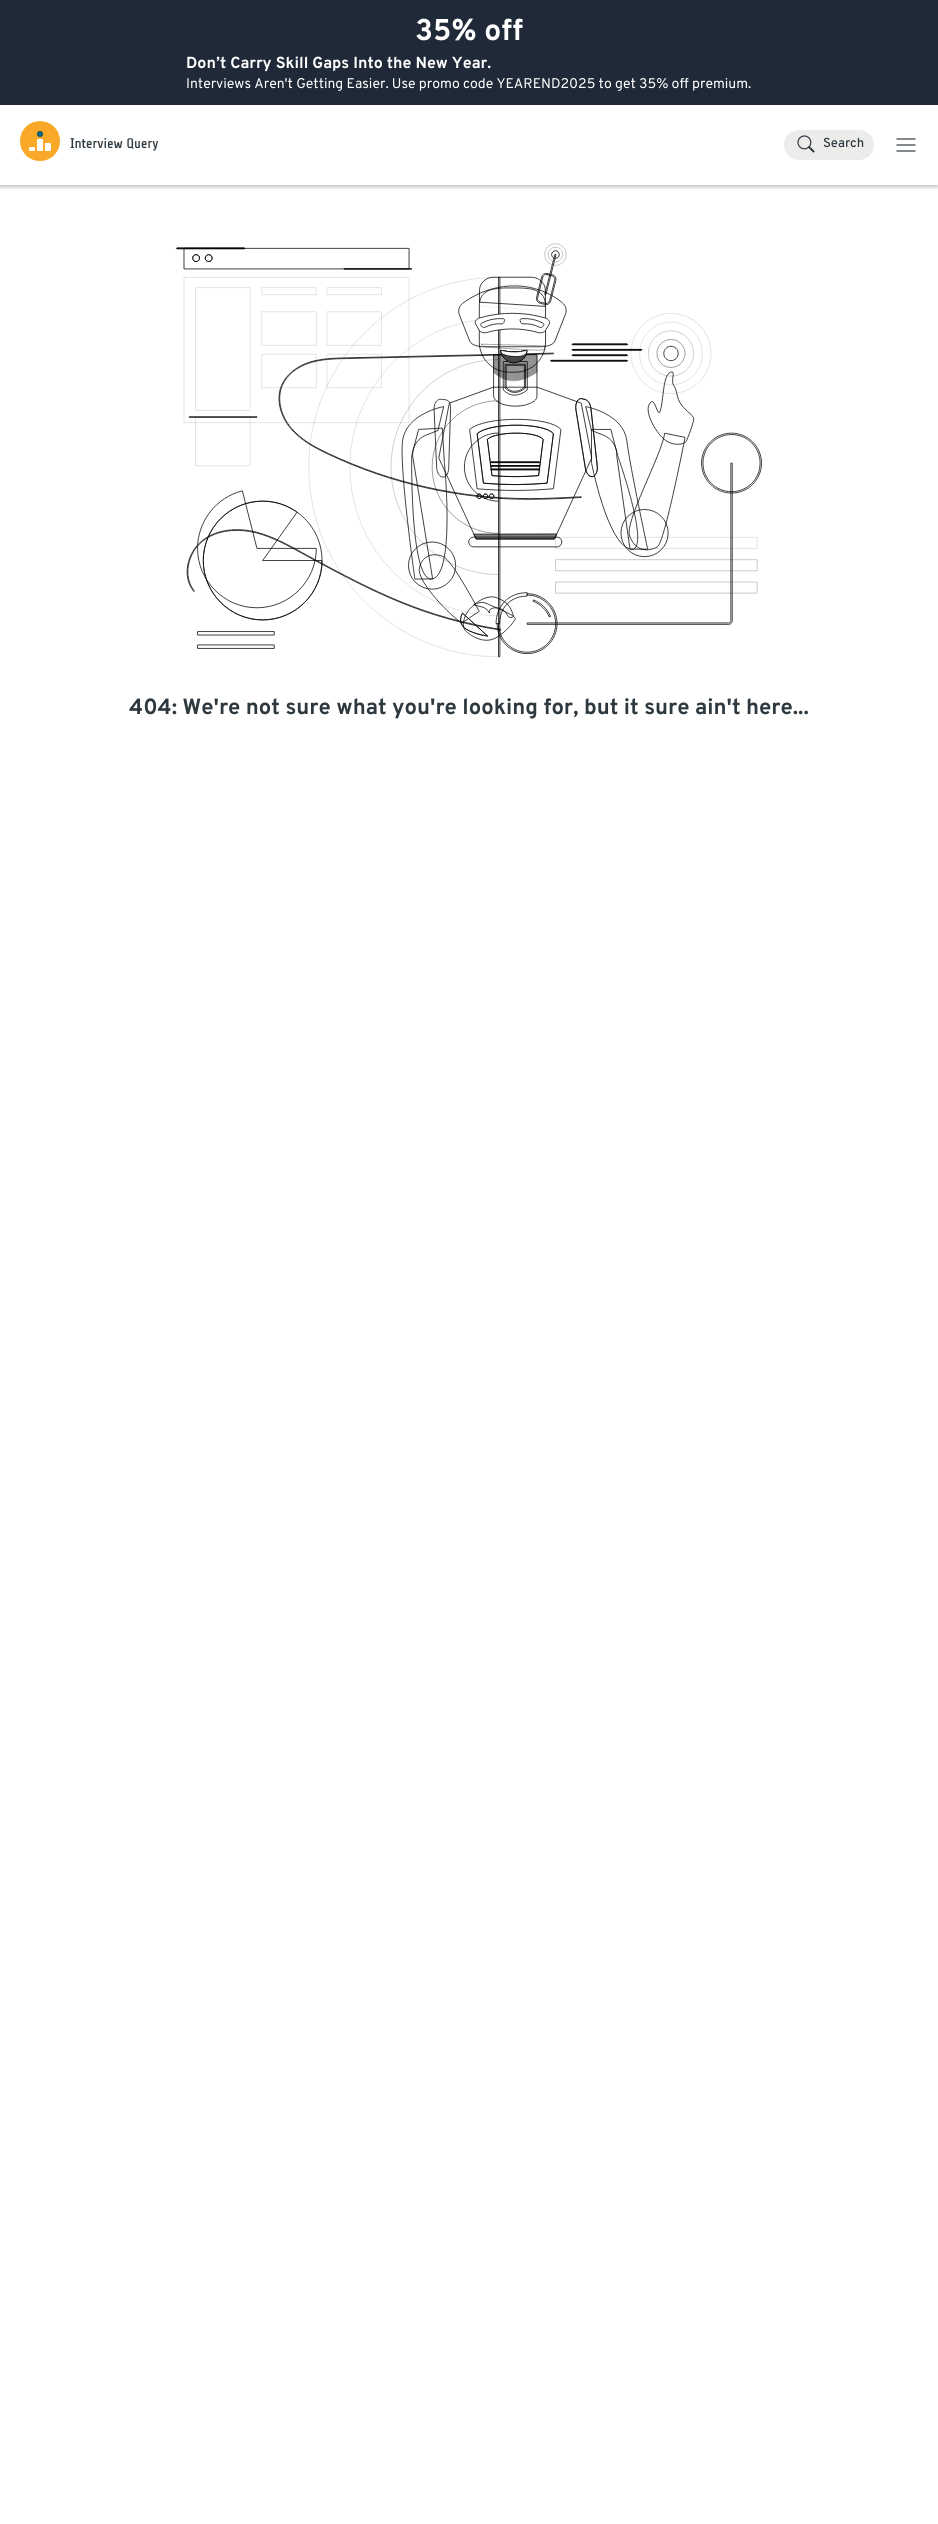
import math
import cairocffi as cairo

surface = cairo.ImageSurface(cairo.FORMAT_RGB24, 938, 2524)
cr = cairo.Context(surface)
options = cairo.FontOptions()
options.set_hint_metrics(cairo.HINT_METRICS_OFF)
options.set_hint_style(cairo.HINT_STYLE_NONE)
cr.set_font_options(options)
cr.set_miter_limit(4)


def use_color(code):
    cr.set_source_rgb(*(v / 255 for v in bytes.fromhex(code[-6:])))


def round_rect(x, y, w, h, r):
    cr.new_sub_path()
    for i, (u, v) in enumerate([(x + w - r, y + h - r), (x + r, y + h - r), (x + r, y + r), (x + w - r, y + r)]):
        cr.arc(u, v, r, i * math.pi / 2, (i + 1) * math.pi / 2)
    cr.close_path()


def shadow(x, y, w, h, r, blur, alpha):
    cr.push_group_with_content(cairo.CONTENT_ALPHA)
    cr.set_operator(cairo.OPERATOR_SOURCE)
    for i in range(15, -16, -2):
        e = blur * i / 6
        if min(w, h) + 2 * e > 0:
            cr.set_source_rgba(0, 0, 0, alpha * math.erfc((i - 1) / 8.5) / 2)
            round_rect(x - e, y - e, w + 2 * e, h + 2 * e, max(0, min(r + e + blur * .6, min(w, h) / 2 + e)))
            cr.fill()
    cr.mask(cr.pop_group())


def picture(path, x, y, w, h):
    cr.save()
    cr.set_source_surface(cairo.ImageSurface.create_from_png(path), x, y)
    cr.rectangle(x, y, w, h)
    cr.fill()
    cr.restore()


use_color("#ffffff")
cr.paint()
cr.save()
cr.rectangle(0, 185, 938, 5)
cr.clip()
use_color("#000000")
shadow(0, 2, 938, 185, 0, 2, 0.25)
cr.restore()
use_color("#1f2937")
cr.rectangle(0, 0, 938, 105)
cr.fill()
cr.select_font_face("Overpass", cairo.FONT_SLANT_NORMAL, cairo.FONT_WEIGHT_BOLD)
cr.set_font_size(30)
use_color("#ffffff")
cr.move_to(415, 40)
cr.show_text("35% off")
cr.set_font_size(16)
cr.move_to(186, 68)
cr.show_text("Don’t Carry Skill Gaps Into the New Year.")
cr.select_font_face("Overpass")
cr.set_font_size(14)
cr.move_to(186, 88)
cr.show_text("Interviews Aren't Getting Easier. Use promo code YEAREND2025 to get 35% off premium.")
picture("img1.png", 20, 121, 139, 40)
use_color("#ececeb")
round_rect(784, 130, 90, 30, 15)
cr.fill()
picture("img2.png", 797, 135, 18, 18)
cr.select_font_face("Overpass Medium")
cr.set_font_size(13)
use_color("#2e383f")
cr.move_to(823, 147)
cr.show_text("Search")
picture("img3.png", 896, 138, 20, 14)
picture("img4.png", 175, 243, 587, 415)
cr.select_font_face("Overpass", cairo.FONT_SLANT_NORMAL, cairo.FONT_WEIGHT_BOLD)
cr.set_font_size(22)
cr.move_to(129, 714)
cr.show_text("404: We're not sure what you're looking for, but it sure ain't here...")
surface.write_to_png("result.png")
